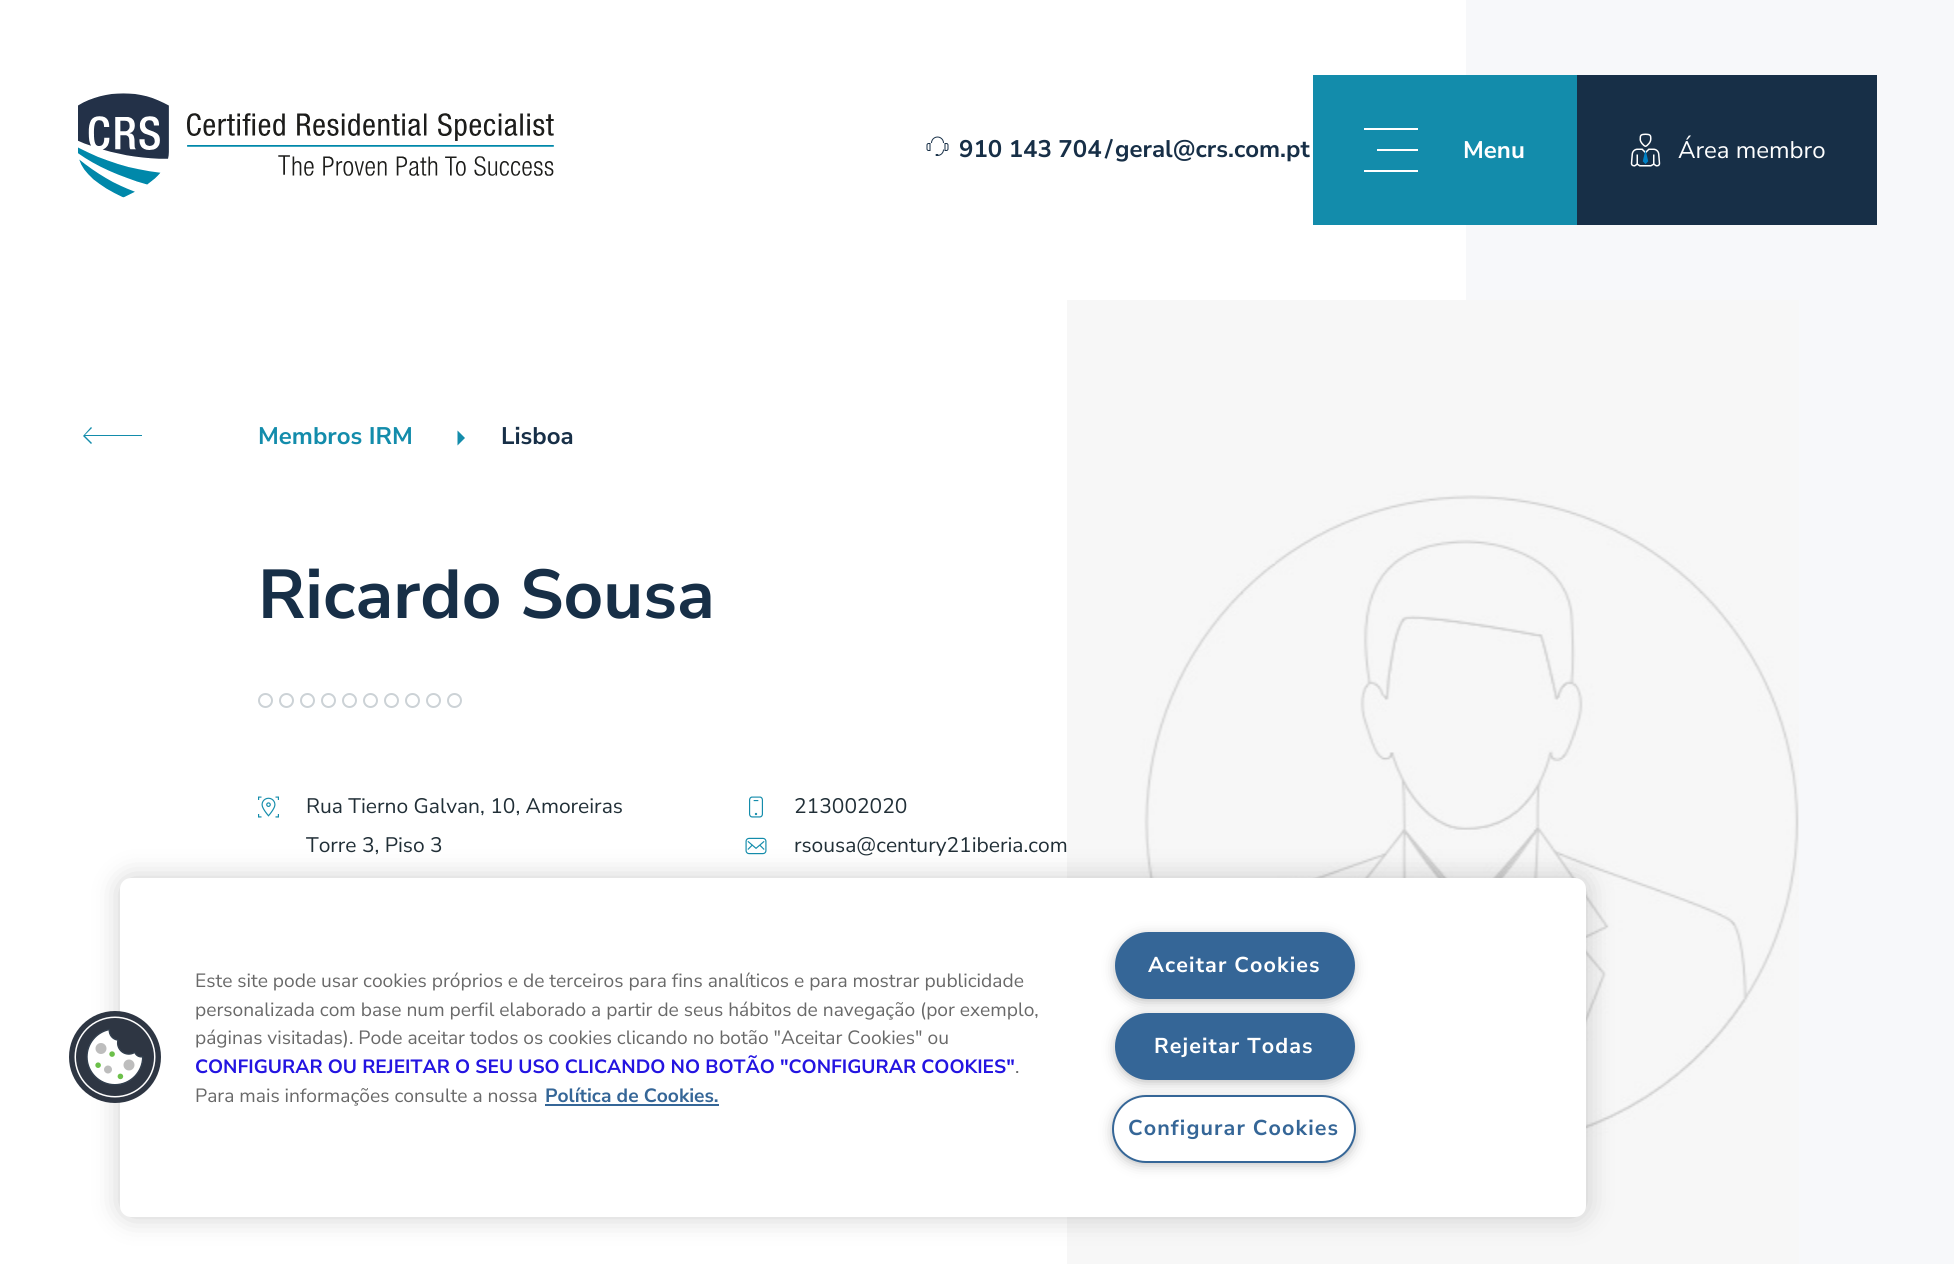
import math
import cairocffi as cairo

surface = cairo.ImageSurface(cairo.FORMAT_RGB24, 1954, 1264)
cr = cairo.Context(surface)
options = cairo.FontOptions()
options.set_hint_metrics(cairo.HINT_METRICS_OFF)
options.set_hint_style(cairo.HINT_STYLE_NONE)
cr.set_font_options(options)
cr.set_miter_limit(4)


def use_color(code):
    cr.set_source_rgb(*(v / 255 for v in bytes.fromhex(code[-6:])))


def spaced_text(x, y, s, letter, word):
    cr.move_to(x, y)
    for ch in s:
        cr.show_text(ch)
        cr.rel_move_to(letter + word * (ch == ' '), 0)


def round_rect(x, y, w, h, r):
    cr.new_sub_path()
    for i, (u, v) in enumerate([(x + w - r, y + h - r), (x + r, y + h - r), (x + r, y + r), (x + w - r, y + r)]):
        cr.arc(u, v, r, i * math.pi / 2, (i + 1) * math.pi / 2)
    cr.close_path()


def shadow(x, y, w, h, r, blur, alpha):
    cr.push_group_with_content(cairo.CONTENT_ALPHA)
    cr.set_operator(cairo.OPERATOR_SOURCE)
    for i in range(15, -16, -2):
        e = blur * i / 6
        if min(w, h) + 2 * e > 0:
            cr.set_source_rgba(0, 0, 0, alpha * math.erfc((i - 1) / 8.5) / 2)
            round_rect(x - e, y - e, w + 2 * e, h + 2 * e, max(0, min(r + e + blur * .6, min(w, h) / 2 + e)))
            cr.fill()
    cr.mask(cr.pop_group())


def picture(path, x, y, w, h):
    cr.save()
    cr.set_source_surface(cairo.ImageSurface.create_from_png(path), x, y)
    cr.rectangle(x, y, w, h)
    cr.fill()
    cr.restore()


use_color("#f7f8fa")
cr.paint()
use_color("#ffffff")
cr.rectangle(0, 0, 1466, 1264)
cr.fill()
picture("img1.png", 78, 93, 476, 105)
picture("img2.png", 926, 136, 23, 20)
cr.select_font_face("Nunito Sans", cairo.FONT_SLANT_NORMAL, cairo.FONT_WEIGHT_BOLD)
cr.set_font_size(24)
use_color("#172f47")
cr.move_to(959, 157)
cr.show_text("910 143 704")
cr.move_to(1105, 157)
cr.show_text("/")
cr.move_to(1115, 157)
cr.show_text("geral@crs.com.pt")
use_color("#138cab")
cr.rectangle(1313, 75, 264, 150)
cr.fill()
use_color("#ffffff")
cr.rectangle(1377, 149, 41, 2)
cr.fill()
cr.rectangle(1364, 128, 54, 2)
cr.fill()
cr.rectangle(1364, 170, 54, 2)
cr.fill()
cr.move_to(1463, 158)
cr.show_text("Menu")
use_color("#172f47")
cr.rectangle(1577, 75, 300, 150)
cr.fill()
picture("img3.png", 1630, 133, 31, 34)
cr.select_font_face("Nunito Sans")
use_color("#ffffff")
cr.move_to(1678, 158)
cr.show_text("Área membro")
use_color("#138cab")
cr.new_path()
cr.move_to(91, 444)
cr.line_to(83, 436)
cr.line_to(91, 427)
cr.line_to(92, 428)
cr.line_to(85, 435)
cr.line_to(142, 435)
cr.line_to(142, 436)
cr.line_to(85, 436)
cr.line_to(92, 443)
cr.close_path()
cr.fill()
cr.select_font_face("Nunito Sans", cairo.FONT_SLANT_NORMAL, cairo.FONT_WEIGHT_BOLD)
cr.move_to(258, 444)
cr.show_text("Membros IRM")
cr.new_path()
cr.move_to(457.5, 445.5)
cr.line_to(457.5, 430.5)
cr.line_to(465, 438)
cr.close_path()
cr.fill()
use_color("#172f47")
cr.move_to(501, 444)
cr.show_text("Lisboa")
cr.set_font_size(69)
cr.move_to(258, 618)
cr.show_text("Ricardo Sousa")
cr.new_path()
cr.arc(265.5, 700.5, 6.5, 0, 2 * math.pi)
use_color("#ccd2d6")
cr.stroke()
cr.arc(286.5, 700.5, 6.5, 0, 2 * math.pi)
cr.stroke()
cr.arc(307.5, 700.5, 6.5, 0, 2 * math.pi)
cr.stroke()
cr.arc(328.5, 700.5, 6.5, 0, 2 * math.pi)
cr.stroke()
cr.arc(349.5, 700.5, 6.5, 0, 2 * math.pi)
cr.stroke()
cr.arc(370.5, 700.5, 6.5, 0, 2 * math.pi)
cr.stroke()
cr.arc(391.5, 700.5, 6.5, 0, 2 * math.pi)
cr.stroke()
cr.arc(412.5, 700.5, 6.5, 0, 2 * math.pi)
cr.stroke()
cr.arc(433.5, 700.5, 6.5, 0, 2 * math.pi)
cr.stroke()
cr.arc(454.5, 700.5, 6.5, 0, 2 * math.pi)
cr.stroke()
picture("img4.png", 258, 796, 21, 22)
cr.select_font_face("Nunito Sans")
cr.set_font_size(21)
use_color("#212f37")
cr.move_to(306, 813)
cr.show_text("Rua Tierno Galvan, 10, Amoreiras")
cr.move_to(306, 852)
cr.show_text("Torre 3, Piso 3")
picture("img5.png", 749, 796, 14, 22)
cr.move_to(794, 813)
cr.show_text("213002020")
picture("img6.png", 745, 837, 22, 18)
cr.move_to(794, 852)
cr.show_text("rsousa@century21iberia.com")
picture("img7.png", 1067, 300, 732, 964)
use_color("#000000")
shadow(120, 878, 1466, 339, 11, 13.5, 0.2)
use_color("#ffffff")
round_rect(120, 878, 1466, 339, 11)
cr.fill()
picture("img8.png", 69, 1011, 92, 92)
cr.set_font_size(19.2)
use_color("#696969")
cr.move_to(195, 987)
cr.show_text("Este site pode usar cookies próprios e de terceiros para fins analíticos e para mostrar publicidade")
cr.move_to(195, 1016)
cr.show_text("personalizada com base num perfil elaborado a partir de seus hábitos de navegação (por exemplo,")
cr.move_to(195, 1044)
cr.show_text("páginas visitadas). Pode aceitar todos os cookies clicando no botão \"Aceitar Cookies\" ou")
cr.select_font_face("Nunito Sans", cairo.FONT_SLANT_NORMAL, cairo.FONT_WEIGHT_BOLD)
use_color("#2314e1")
cr.move_to(195, 1073)
cr.show_text("CONFIGURAR OU REJEITAR O SEU USO CLICANDO NO BOTÃO \"CONFIGURAR COOKIES\"")
cr.select_font_face("Nunito Sans")
use_color("#696969")
cr.move_to(1015, 1073)
cr.show_text(".")
cr.move_to(195, 1102)
cr.show_text("Para mais informações consulte a nossa")
cr.select_font_face("Nunito Sans", cairo.FONT_SLANT_NORMAL, cairo.FONT_WEIGHT_BOLD)
use_color("#356697")
cr.move_to(545, 1102)
cr.show_text("Política de Cookies.")
cr.rectangle(545, 1104, 174, 2)
cr.fill()
use_color("#999999")
shadow(1119, 939, 231, 59, 29.5, 7.5, 1)
use_color("#356697")
round_rect(1116, 933, 238, 65, 32.5)
cr.fill_preserve()
cr.stroke()
cr.set_font_size(21.5)
use_color("#ffffff")
spaced_text(1148, 972, "Aceitar Cookies", 1.1, 0)
use_color("#999999")
shadow(1119, 1020, 231, 59, 29.5, 7.5, 1)
use_color("#356697")
round_rect(1116, 1014, 238, 65, 32.5)
cr.fill_preserve()
cr.stroke()
use_color("#ffffff")
spaced_text(1154, 1053, "Rejeitar Todas", 1.1, 0)
use_color("#999999")
shadow(1116, 1103, 236, 58, 29, 7.5, 1)
use_color("#ffffff")
round_rect(1113, 1096, 242, 66, 33)
cr.fill_preserve()
use_color("#356697")
cr.stroke()
spaced_text(1128, 1135, "Configurar Cookies", 1.1, 0)
surface.write_to_png("result.png")
